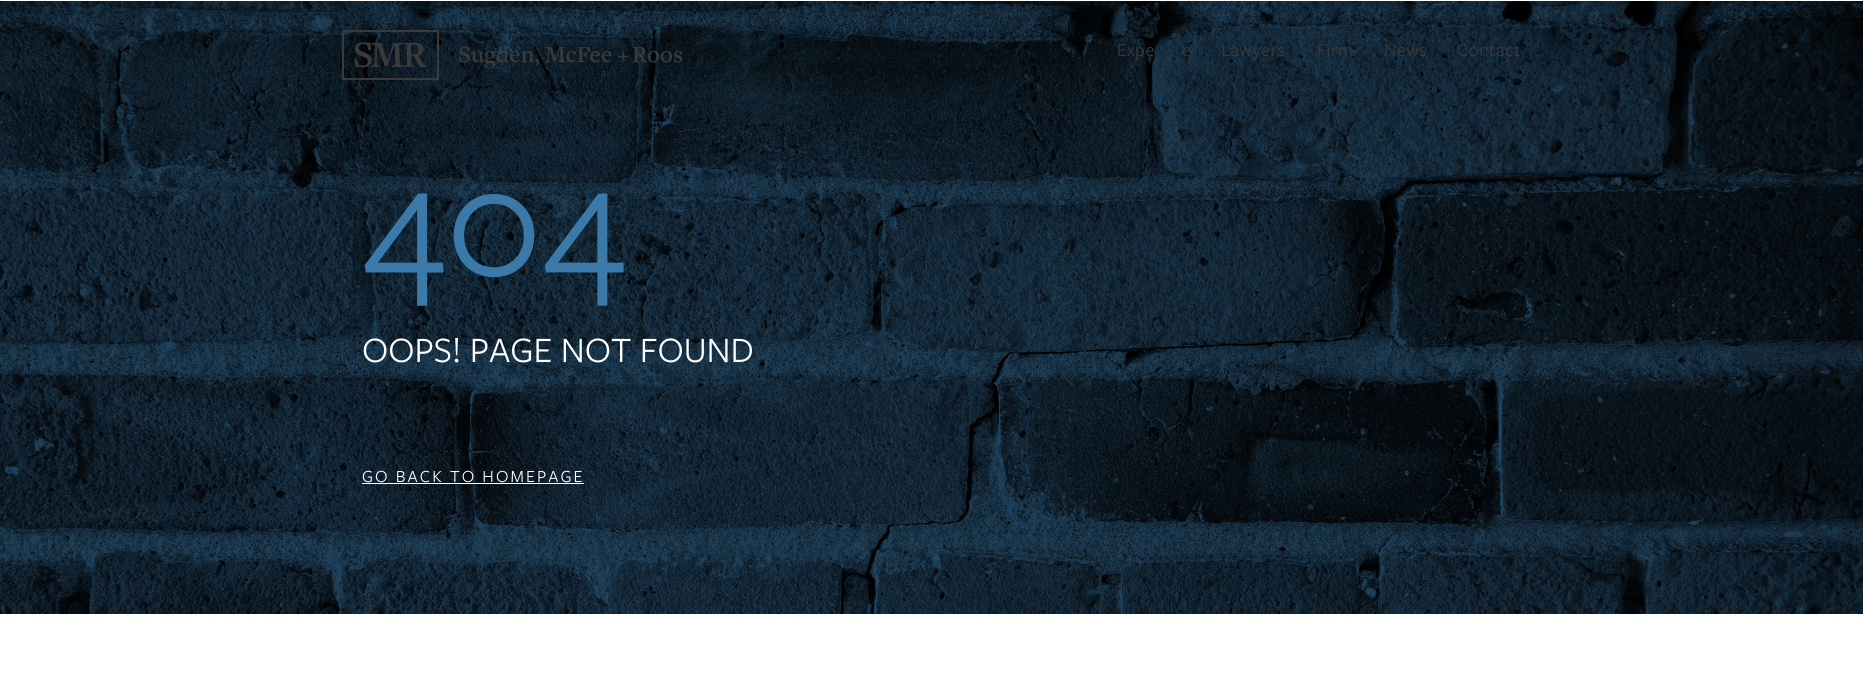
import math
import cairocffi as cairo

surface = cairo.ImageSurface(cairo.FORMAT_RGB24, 1863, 681)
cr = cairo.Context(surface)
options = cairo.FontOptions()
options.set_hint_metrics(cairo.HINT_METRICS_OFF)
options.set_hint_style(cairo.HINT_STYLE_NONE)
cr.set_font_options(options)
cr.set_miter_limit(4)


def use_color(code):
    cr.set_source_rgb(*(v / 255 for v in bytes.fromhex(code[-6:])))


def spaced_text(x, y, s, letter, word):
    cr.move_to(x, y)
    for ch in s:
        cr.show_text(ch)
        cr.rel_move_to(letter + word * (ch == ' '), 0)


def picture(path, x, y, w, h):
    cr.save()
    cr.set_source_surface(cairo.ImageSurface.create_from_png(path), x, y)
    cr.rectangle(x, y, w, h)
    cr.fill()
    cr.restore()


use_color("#ffffff")
cr.paint()
picture("img2.png", 0, 1, 1863, 613)
picture("img1.png", 342, 30, 340, 50)
cr.select_font_face("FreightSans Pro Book")
cr.set_font_size(19)
use_color("#3a3a3a")
spaced_text(1117, 56, "Expe", 0.5, 0)
spaced_text(1182, 56, "e", 0.5, 0)
spaced_text(1221, 56, "Lawyers", 0.5, 0)
spaced_text(1317, 56, "Firm", 0.5, 0)
spaced_text(1384, 56, "News", 0.5, 0)
spaced_text(1457, 56, "Contact", 0.5, 0)
cr.set_font_size(167)
use_color("#3b79a8")
cr.move_to(362, 275)
cr.show_text("404")
cr.set_font_size(37)
use_color("#ffffff")
cr.move_to(362, 362)
cr.show_text("OOPS! PAGE NOT FOUND")
cr.set_font_size(17.6)
spaced_text(362, 482, "GO BACK TO HOMEPAGE", 2.1, 0)
cr.rectangle(362, 483, 222, 1)
cr.fill()
surface.write_to_png("result.png")
